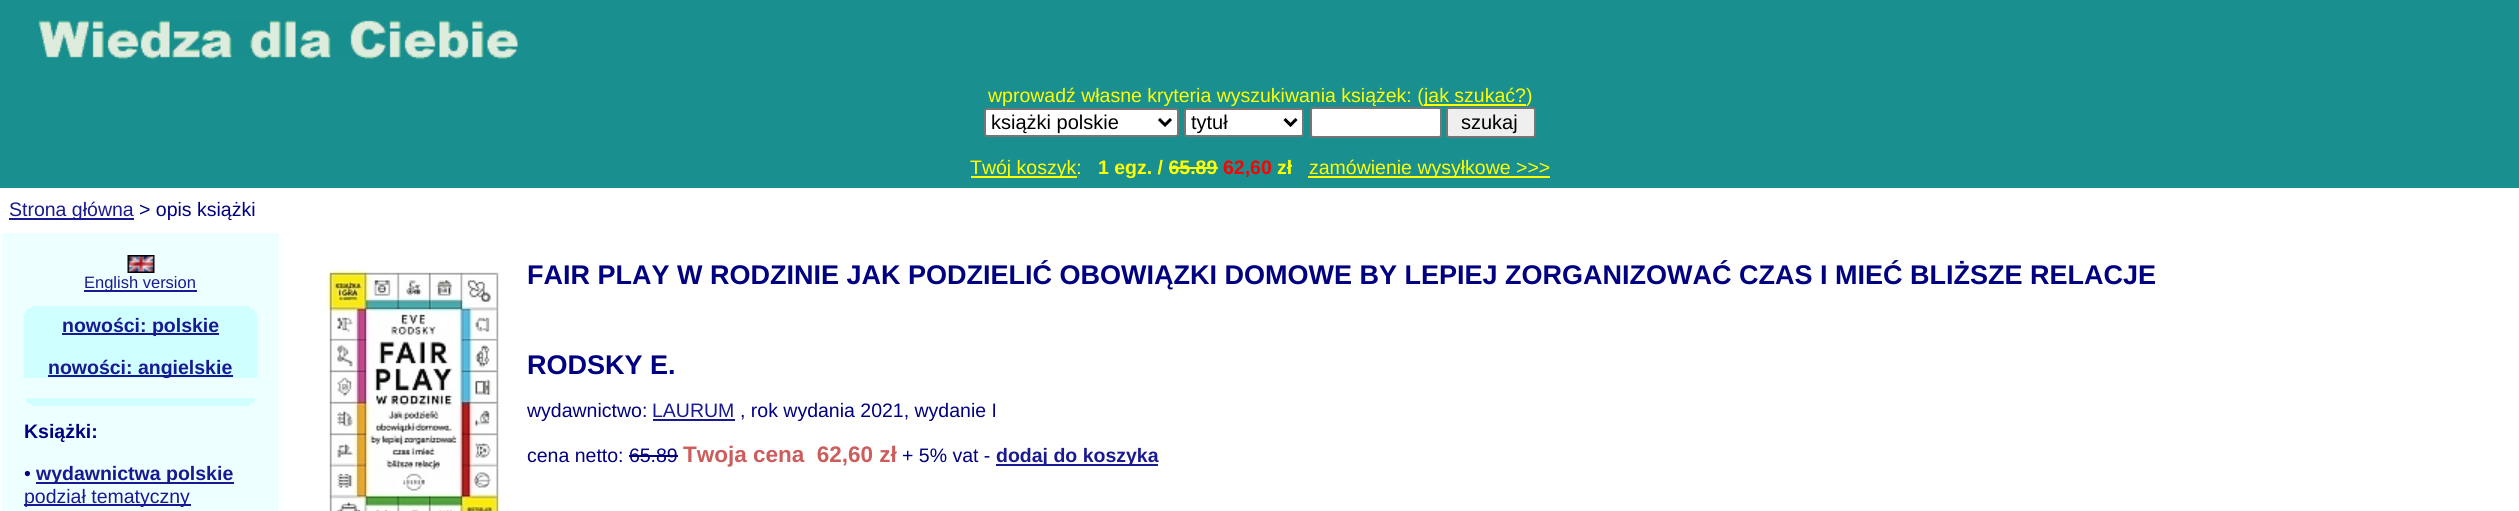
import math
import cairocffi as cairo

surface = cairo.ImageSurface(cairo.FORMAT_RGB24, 2519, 511)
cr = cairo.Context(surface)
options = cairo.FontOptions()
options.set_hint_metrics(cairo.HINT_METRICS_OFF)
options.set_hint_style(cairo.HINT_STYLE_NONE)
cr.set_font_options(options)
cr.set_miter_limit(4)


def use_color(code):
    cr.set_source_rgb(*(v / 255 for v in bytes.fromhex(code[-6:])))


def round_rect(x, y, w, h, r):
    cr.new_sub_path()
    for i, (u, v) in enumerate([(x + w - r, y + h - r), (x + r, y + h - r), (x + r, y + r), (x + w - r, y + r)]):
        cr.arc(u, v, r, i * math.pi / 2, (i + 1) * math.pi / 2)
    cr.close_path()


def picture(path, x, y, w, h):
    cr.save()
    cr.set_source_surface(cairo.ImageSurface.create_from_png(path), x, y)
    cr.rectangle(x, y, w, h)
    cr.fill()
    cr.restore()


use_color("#ffffff")
cr.paint()
use_color("#198f8f")
cr.rectangle(0, 0, 2519, 147)
cr.fill()
picture("img1.png", 38, 20, 480, 39)
cr.select_font_face("Liberation Sans")
cr.set_font_size(19.5)
use_color("#ffff00")
cr.move_to(988, 102)
cr.show_text("wprowadź własne kryteria wyszukiwania książek: (")
cr.rectangle(1424, 104, 102, 2)
cr.fill()
cr.move_to(1424, 102)
cr.show_text("jak szukać?)")
use_color("#ffffff")
round_rect(985, 109, 193, 27, 2)
cr.fill_preserve()
use_color("#767676")
cr.stroke()
cr.new_path()
cr.move_to(1159, 119)
cr.line_to(1165, 125)
cr.line_to(1171, 119)
use_color("#000000")
cr.set_line_width(3)
cr.stroke()
cr.set_font_size(20)
cr.move_to(991, 129)
cr.show_text("książki polskie")
use_color("#ffffff")
round_rect(1185, 109, 118, 27, 2)
cr.fill_preserve()
use_color("#767676")
cr.set_line_width(2)
cr.stroke()
cr.new_path()
cr.move_to(1284.5, 119)
cr.line_to(1290.5, 125)
cr.line_to(1296.5, 119)
use_color("#000000")
cr.set_line_width(3)
cr.stroke()
cr.move_to(1191, 129)
cr.show_text("tytuł")
use_color("#ffffff")
round_rect(1311, 108, 130, 29, 2)
cr.fill_preserve()
use_color("#767676")
cr.set_line_width(2)
cr.stroke()
use_color("#efefef")
round_rect(1447, 108, 88, 29, 2)
cr.fill_preserve()
use_color("#767676")
cr.stroke()
use_color("#000000")
cr.move_to(1461, 129)
cr.show_text("szukaj")
cr.rectangle(1, 148, 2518, 39)
use_color("#198f8f")
cr.stroke()
cr.rectangle(2, 149, 2516, 37)
cr.fill()
use_color("#ffff00")
cr.rectangle(971, 176, 106, 2)
cr.fill()
cr.set_font_size(19.5)
cr.move_to(970, 174)
cr.show_text("Twój koszyk:")
cr.select_font_face("Liberation Sans", cairo.FONT_SLANT_NORMAL, cairo.FONT_WEIGHT_BOLD)
cr.move_to(1098, 174)
cr.show_text("1 egz. / 65.89")
cr.rectangle(1169, 167, 49, 2)
cr.fill()
use_color("#ff0000")
cr.move_to(1223, 174)
cr.show_text("62,60")
use_color("#ffff00")
cr.move_to(1277, 174)
cr.show_text("zł")
cr.rectangle(1308, 176, 242, 2)
cr.fill()
cr.select_font_face("Liberation Sans")
cr.move_to(1309, 174)
cr.show_text("zamówienie wysyłkowe >>>")
use_color("#191991")
cr.rectangle(9, 218, 125, 2)
cr.fill()
cr.move_to(9, 216)
cr.show_text("Strona główna")
use_color("#000080")
cr.move_to(139, 216)
cr.show_text("> opis książki")
use_color("#edffff")
cr.rectangle(2, 233, 277, 278)
cr.fill()
picture("img2.png", 127, 255, 28, 18)
use_color("#191991")
cr.rectangle(84, 290, 113, 2)
cr.fill()
cr.set_font_size(16.5)
cr.move_to(84, 288)
cr.show_text("English version")
use_color("#d0ffff")
cr.rectangle(32, 306, 217, 2)
cr.fill()
cr.rectangle(29, 308, 223, 1)
cr.fill()
cr.rectangle(27, 309, 227, 2)
cr.fill()
cr.rectangle(26, 311, 229, 3)
cr.fill()
cr.rectangle(24, 314, 233, 64)
cr.fill()
use_color("#191991")
cr.rectangle(62, 333, 157, 2)
cr.fill()
cr.select_font_face("Liberation Sans", cairo.FONT_SLANT_NORMAL, cairo.FONT_WEIGHT_BOLD)
cr.set_font_size(19.5)
cr.move_to(62, 332)
cr.show_text("nowości: polskie")
cr.rectangle(48, 375, 185, 2)
cr.fill()
cr.move_to(48, 374)
cr.show_text("nowości: angielskie")
use_color("#d0ffff")
cr.rectangle(26, 398, 229, 3)
cr.fill()
cr.rectangle(27, 401, 227, 2)
cr.fill()
cr.rectangle(29, 403, 223, 1)
cr.fill()
cr.rectangle(32, 404, 217, 2)
cr.fill()
use_color("#000080")
cr.move_to(24, 438)
cr.show_text("Książki:")
cr.select_font_face("Liberation Sans")
cr.move_to(24, 480)
cr.show_text("•")
use_color("#191991")
cr.rectangle(36, 482, 198, 2)
cr.fill()
cr.select_font_face("Liberation Sans", cairo.FONT_SLANT_NORMAL, cairo.FONT_WEIGHT_BOLD)
cr.move_to(36, 480)
cr.show_text("wydawnictwa polskie")
cr.rectangle(24, 504, 167, 2)
cr.fill()
cr.select_font_face("Liberation Sans")
cr.move_to(24, 503)
cr.show_text("podział tematyczny")
picture("img3.png", 325, 268, 177, 243)
cr.select_font_face("Liberation Sans", cairo.FONT_SLANT_NORMAL, cairo.FONT_WEIGHT_BOLD)
cr.set_font_size(27)
use_color("#000080")
cr.move_to(527, 284)
cr.show_text("FAIR PLAY W RODZINIE JAK PODZIELIĆ OBOWIĄZKI DOMOWE BY LEPIEJ ZORGANIZOWAĆ CZAS I MIEĆ BLIŻSZE RELACJE")
cr.move_to(527, 374)
cr.show_text("RODSKY E.")
cr.select_font_face("Liberation Sans")
cr.set_font_size(19.5)
cr.move_to(527, 417)
cr.show_text("wydawnictwo:")
use_color("#191991")
cr.move_to(652, 417)
cr.show_text("LAURUM")
cr.rectangle(653, 419, 82, 2)
cr.fill()
use_color("#000080")
cr.move_to(740, 417)
cr.show_text(", rok wydania 2021, wydanie I")
cr.move_to(527, 462)
cr.show_text("cena netto: 65.89")
cr.select_font_face("Liberation Sans", cairo.FONT_SLANT_NORMAL, cairo.FONT_WEIGHT_BOLD)
cr.set_font_size(22.5)
use_color("#cd5c5c")
cr.move_to(683, 462)
cr.show_text("Twoja cena  62,60 zł")
cr.select_font_face("Liberation Sans")
cr.set_font_size(19.5)
use_color("#000080")
cr.move_to(902, 462)
cr.show_text("+ 5% vat -")
use_color("#191991")
cr.rectangle(996, 464, 162, 2)
cr.fill()
cr.select_font_face("Liberation Sans", cairo.FONT_SLANT_NORMAL, cairo.FONT_WEIGHT_BOLD)
cr.move_to(996, 462)
cr.show_text("dodaj do koszyka")
use_color("#000080")
cr.rectangle(629, 455, 49, 2)
cr.fill()
surface.write_to_png("result.png")
